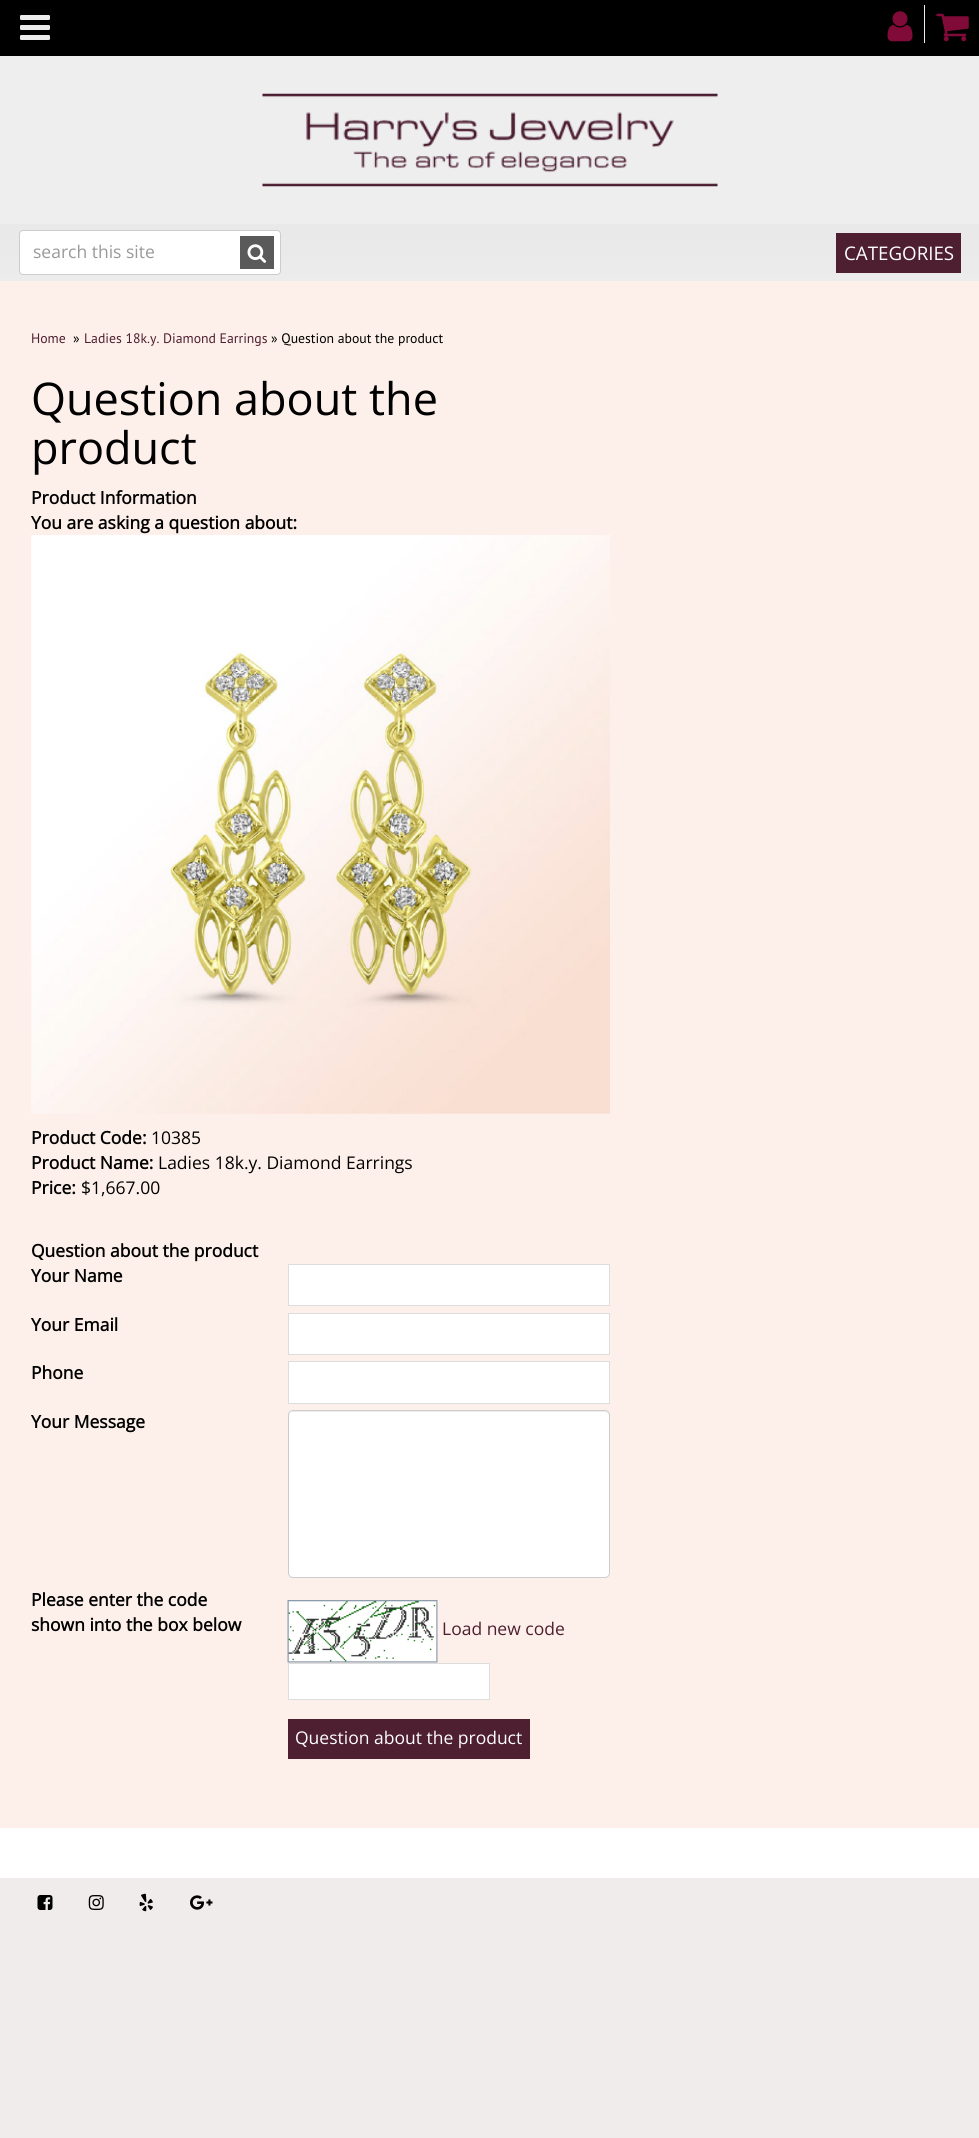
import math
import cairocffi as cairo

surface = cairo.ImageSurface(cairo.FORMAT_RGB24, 979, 2138)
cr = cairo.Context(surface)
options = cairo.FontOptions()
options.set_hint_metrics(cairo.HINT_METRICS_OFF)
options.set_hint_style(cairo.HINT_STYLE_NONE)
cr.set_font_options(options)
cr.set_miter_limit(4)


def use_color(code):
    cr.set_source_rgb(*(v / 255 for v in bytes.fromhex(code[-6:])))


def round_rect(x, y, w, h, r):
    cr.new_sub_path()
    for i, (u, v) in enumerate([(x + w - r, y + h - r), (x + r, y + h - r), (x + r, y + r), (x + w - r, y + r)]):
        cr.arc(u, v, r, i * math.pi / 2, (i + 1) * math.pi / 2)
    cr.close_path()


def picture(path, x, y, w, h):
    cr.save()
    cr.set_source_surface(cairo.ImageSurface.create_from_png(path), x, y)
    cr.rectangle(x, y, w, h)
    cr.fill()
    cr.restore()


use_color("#ffffff")
cr.paint()
gradient = cairo.LinearGradient(490, 0, 490, 281)
gradient.add_color_stop_rgba(0, 0.863, 0.863, 0.863, 1)
gradient.add_color_stop_rgba(1, 0.925, 0.925, 0.925, 1)
cr.set_source(gradient)
cr.rectangle(0, 224, 979, 57)
cr.fill()
use_color("#000000")
cr.rectangle(0, 0, 979, 56)
cr.fill()
picture("img1.png", 20, 15, 30, 25)
use_color("#ececec")
cr.rectangle(924, 5, 1, 38)
cr.fill()
picture("img2.png", 887, 11, 26, 31)
picture("img3.png", 936, 13, 33, 29)
use_color("#eeeeee")
cr.rectangle(0, 56, 979, 168)
cr.fill()
picture("img4.png", 262, 93, 456, 94)
use_color("#ffffff")
round_rect(19.5, 230.5, 261, 44, 3.5)
cr.fill_preserve()
use_color("#cccccc")
cr.set_line_width(1)
cr.stroke()
cr.select_font_face("Open Sans")
cr.set_font_size(17.5)
use_color("#999999")
cr.move_to(33, 258)
cr.show_text("search this site")
use_color("#5a5a5a")
cr.rectangle(240, 236, 34, 33)
cr.fill()
picture("img5.png", 247, 244, 20, 19)
use_color("#4e1e31")
cr.rectangle(836, 233, 125, 40)
cr.fill()
cr.set_font_size(18.75)
use_color("#ffffff")
cr.move_to(844, 260)
cr.show_text("CATEGORIES")
use_color("#fdf0ea")
cr.rectangle(0, 281, 979, 1547)
cr.fill()
cr.select_font_face("PT Sans")
cr.set_font_size(13.75)
use_color("#4e1e31")
cr.move_to(31, 343)
cr.show_text("Home")
use_color("#000000")
cr.move_to(73, 343)
cr.show_text("»")
use_color("#4e1e31")
cr.move_to(84, 343)
cr.show_text("Ladies 18k.y. Diamond Earrings")
use_color("#000000")
cr.move_to(271, 343)
cr.show_text("» Question about the product")
cr.select_font_face("Open Sans")
cr.set_font_size(45)
cr.move_to(31, 415)
cr.show_text("Question about the")
cr.move_to(31, 464)
cr.show_text("product")
cr.select_font_face("Open Sans", cairo.FONT_SLANT_NORMAL, cairo.FONT_WEIGHT_BOLD)
cr.set_font_size(17.5)
cr.move_to(31, 504)
cr.show_text("Product Information")
cr.move_to(31, 529)
cr.show_text("You are asking a question about:")
picture("img6.png", 31, 535, 579, 579)
cr.move_to(31, 1144)
cr.show_text("Product Code:")
cr.select_font_face("Open Sans")
cr.move_to(151, 1144)
cr.show_text("10385")
cr.select_font_face("Open Sans", cairo.FONT_SLANT_NORMAL, cairo.FONT_WEIGHT_BOLD)
cr.move_to(31, 1169)
cr.show_text("Product Name:")
cr.select_font_face("Open Sans")
cr.move_to(158, 1169)
cr.show_text("Ladies 18k.y. Diamond Earrings")
cr.select_font_face("Open Sans", cairo.FONT_SLANT_NORMAL, cairo.FONT_WEIGHT_BOLD)
cr.move_to(31, 1194)
cr.show_text("Price:")
cr.select_font_face("Open Sans")
cr.move_to(81, 1194)
cr.show_text("$1,667.00")
cr.select_font_face("Open Sans", cairo.FONT_SLANT_NORMAL, cairo.FONT_WEIGHT_BOLD)
cr.move_to(31, 1257)
cr.show_text("Question about the product")
cr.move_to(31, 1282)
cr.show_text("Your Name")
use_color("#ffffff")
cr.rectangle(288.5, 1264.5, 321, 41)
cr.fill_preserve()
use_color("#dddddd")
cr.stroke()
use_color("#000000")
cr.move_to(31, 1331)
cr.show_text("Your Email")
use_color("#ffffff")
cr.rectangle(288.5, 1313.5, 321, 41)
cr.fill_preserve()
use_color("#dddddd")
cr.stroke()
use_color("#000000")
cr.move_to(31, 1379)
cr.show_text("Phone")
use_color("#ffffff")
cr.rectangle(288.5, 1361.5, 321, 42)
cr.fill_preserve()
use_color("#dddddd")
cr.stroke()
use_color("#000000")
cr.move_to(31, 1428)
cr.show_text("Your Message")
use_color("#ffffff")
round_rect(288, 1410, 322, 168, 5)
cr.fill()
use_color("#ececec")
cr.new_path()
cr.move_to(292, 1412)
cr.line_to(605, 1412)
cr.curve_to(607, 1412, 609, 1414, 609, 1416)
cr.line_to(609, 1415)
cr.curve_to(609, 1413, 607, 1411, 605, 1411)
cr.line_to(293, 1411)
cr.curve_to(291, 1411, 289, 1413, 289, 1415)
cr.line_to(289, 1416)
cr.curve_to(289, 1414, 290, 1412, 292, 1412)
cr.close_path()
cr.fill()
round_rect(288.5, 1410.5, 321, 167, 4.5)
use_color("#cccccc")
cr.stroke()
use_color("#000000")
cr.move_to(31, 1606)
cr.show_text("Please enter the code")
cr.move_to(31, 1631)
cr.show_text("shown into the box below")
picture("img7.png", 287, 1600, 151, 63)
cr.select_font_face("Open Sans")
use_color("#4e1e31")
cr.move_to(442, 1635)
cr.show_text("Load new code")
use_color("#ffffff")
cr.rectangle(288.5, 1663.5, 201, 36)
cr.fill_preserve()
use_color("#dddddd")
cr.stroke()
use_color("#4e1e31")
cr.rectangle(288, 1719, 242, 40)
cr.fill()
use_color("#ffffff")
cr.move_to(295, 1744)
cr.show_text("Question about the product")
use_color("#f0eceb")
cr.rectangle(0, 1878, 979, 260)
cr.fill()
picture("img8.png", 37, 1895, 16, 15)
picture("img9.png", 88, 1895, 16, 15)
picture("img10.png", 139, 1893, 14, 19)
picture("img11.png", 190, 1895, 23, 15)
surface.write_to_png("result.png")
